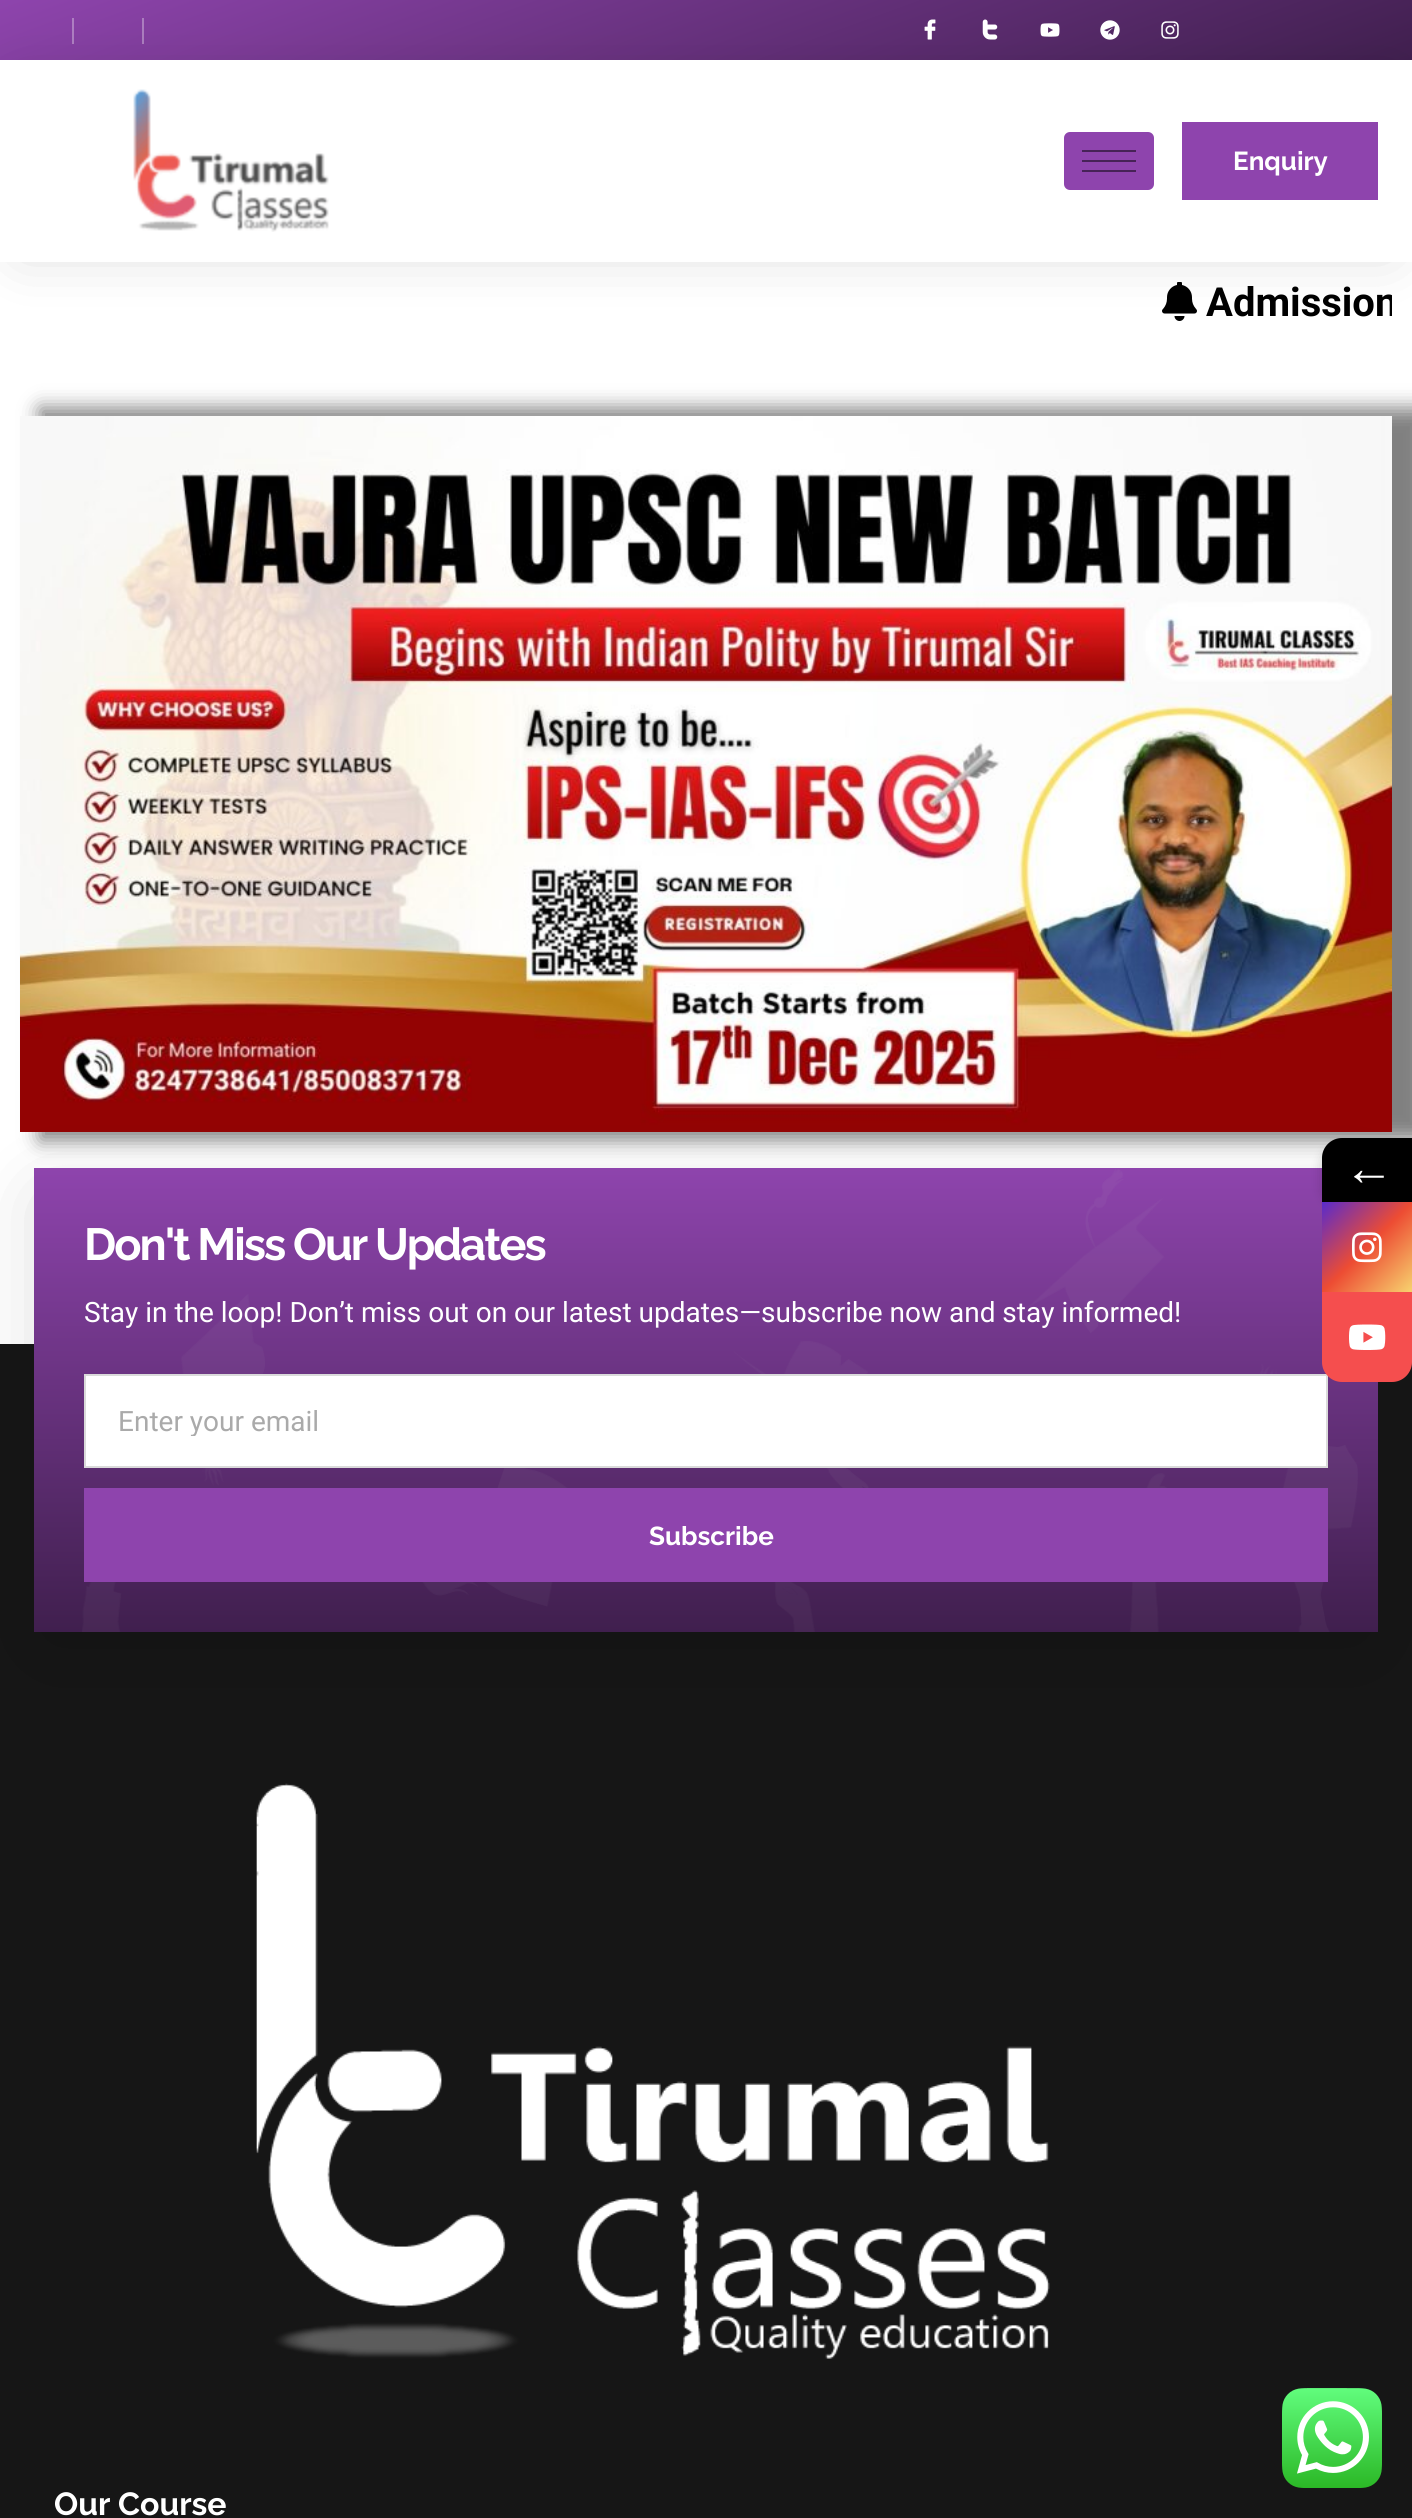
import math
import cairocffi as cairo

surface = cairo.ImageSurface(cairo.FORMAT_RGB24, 1412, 2518)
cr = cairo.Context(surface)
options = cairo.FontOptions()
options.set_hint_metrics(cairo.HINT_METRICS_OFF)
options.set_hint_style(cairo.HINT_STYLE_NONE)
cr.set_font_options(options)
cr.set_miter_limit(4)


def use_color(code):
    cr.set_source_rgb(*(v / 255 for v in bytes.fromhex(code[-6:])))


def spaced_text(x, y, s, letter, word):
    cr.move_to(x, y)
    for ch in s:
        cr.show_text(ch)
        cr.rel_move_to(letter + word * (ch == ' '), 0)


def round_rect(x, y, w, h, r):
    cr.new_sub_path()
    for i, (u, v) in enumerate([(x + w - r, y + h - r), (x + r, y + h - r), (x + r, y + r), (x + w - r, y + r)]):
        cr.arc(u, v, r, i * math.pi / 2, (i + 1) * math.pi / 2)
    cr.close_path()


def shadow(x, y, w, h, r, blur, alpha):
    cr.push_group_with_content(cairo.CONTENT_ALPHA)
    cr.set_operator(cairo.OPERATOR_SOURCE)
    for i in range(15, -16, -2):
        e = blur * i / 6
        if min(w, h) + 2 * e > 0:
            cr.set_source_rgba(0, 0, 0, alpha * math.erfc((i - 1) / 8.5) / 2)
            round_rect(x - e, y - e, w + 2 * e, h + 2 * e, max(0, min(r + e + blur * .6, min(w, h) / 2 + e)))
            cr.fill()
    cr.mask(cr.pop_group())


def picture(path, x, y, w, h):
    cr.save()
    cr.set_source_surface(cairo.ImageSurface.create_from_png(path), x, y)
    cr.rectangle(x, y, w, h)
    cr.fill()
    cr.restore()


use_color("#ffffff")
cr.paint()
gradient = cairo.LinearGradient(614, -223, 798, 283)
gradient.add_color_stop_rgba(0, 0.557, 0.267, 0.678, 1)
gradient.add_color_stop_rgba(1, 0.251, 0.122, 0.306, 1)
cr.set_source(gradient)
cr.rectangle(0, 0, 1412, 60)
cr.fill()
gradient = cairo.LinearGradient(614, -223, 798, 283)
gradient.add_color_stop_rgba(0, 0.698, 0.502, 0.78, 1)
gradient.add_color_stop_rgba(1, 0.49, 0.404, 0.529, 1)
cr.set_source(gradient)
cr.rectangle(142, 18, 2, 26)
cr.fill()
cr.rectangle(72, 18, 2, 26)
cr.fill()
picture("img1.png", 924, 19, 12, 21)
picture("img2.png", 982, 19, 16, 21)
picture("img3.png", 1040, 23, 20, 14)
picture("img4.png", 1100, 20, 20, 20)
picture("img5.png", 1161, 21, 18, 18)
picture("img7.png", 1162, 282, 35, 39)
cr.save()
cr.set_fill_rule(cairo.FILL_RULE_EVEN_ODD)
cr.new_path()
cr.move_to(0, 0)
cr.line_to(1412, 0)
cr.line_to(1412, 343)
cr.line_to(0, 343)
cr.close_path()
cr.move_to(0, 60)
cr.line_to(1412, 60)
cr.line_to(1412, 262)
cr.line_to(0, 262)
cr.close_path()
cr.clip()
use_color("#000000")
shadow(20, 90, 1372, 162, 0, 30, 0.15)
cr.restore()
picture("img6.png", 133, 89, 196, 143)
use_color("#8e44ad")
round_rect(1064, 132, 90, 58, 6)
cr.fill()
use_color("#472257")
cr.rectangle(1082, 150, 54, 2)
cr.fill()
cr.rectangle(1082, 160, 54, 2)
cr.fill()
cr.rectangle(1082, 170, 54, 2)
cr.fill()
use_color("#8e44ad")
cr.rectangle(1182, 122, 196, 78)
cr.fill()
cr.select_font_face("Raleway", cairo.FONT_SLANT_NORMAL, cairo.FONT_WEIGHT_BOLD)
cr.set_font_size(26)
use_color("#ffffff")
cr.move_to(1233, 170)
cr.show_text("Enquiry")
cr.save()
cr.rectangle(20, 282, 1372, 42)
cr.clip()
cr.select_font_face("Roboto", cairo.FONT_SLANT_NORMAL, cairo.FONT_WEIGHT_BOLD)
cr.set_font_size(40)
use_color("#000000")
cr.move_to(1206, 316)
cr.show_text("Admission")
cr.restore()
use_color("#000000")
shadow(40, 408, 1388, 732, 0, 10, 0.5)
picture("img8.png", 20, 416, 1372, 716)
use_color("#161616")
cr.rectangle(0, 1344, 1412, 1174)
cr.fill()
use_color("#000000")
shadow(44, 1198, 1324, 444, 0, 40, 0.15)
gradient = cairo.LinearGradient(706, 1168, 706, 1632)
gradient.add_color_stop_rgba(0, 0.557, 0.267, 0.678, 1)
gradient.add_color_stop_rgba(1, 0.251, 0.122, 0.306, 1)
cr.set_source(gradient)
cr.rectangle(34, 1168, 1344, 464)
cr.fill()
picture("img11.png", 82, 1169, 1276, 463)
use_color("#000000")
shadow(1322, 1144, 90, 64, 20, 6, 0.16)
use_color("#000000")
cr.new_path()
cr.move_to(1342, 1138)
cr.line_to(1412, 1138)
cr.line_to(1412, 1202)
cr.line_to(1322, 1202)
cr.line_to(1322, 1158)
cr.curve_to(1322, 1147, 1331, 1138, 1342, 1138)
cr.close_path()
cr.fill()
cr.select_font_face("Liberation Serif")
cr.set_font_size(50)
use_color("#ffffff")
cr.move_to(1344, 1185)
cr.show_text("←")
gradient = cairo.LinearGradient(1322, 1202, 1412, 1292)
gradient.add_color_stop_rgba(0, 0.345, 0.169, 0.804, 1)
gradient.add_color_stop_rgba(0.5, 0.929, 0.298, 0.2, 1)
gradient.add_color_stop_rgba(1, 0.969, 0.827, 0.435, 1)
cr.set_source(gradient)
cr.rectangle(1322, 1202, 90, 90)
cr.fill()
picture("img9.png", 1352, 1232, 30, 31)
use_color("#ffffff")
cr.rectangle(85, 1375, 1242, 92)
cr.fill_preserve()
use_color("#dadada")
cr.stroke()
use_color("#f54e4e")
cr.new_path()
cr.move_to(1322, 1292)
cr.line_to(1412, 1292)
cr.line_to(1412, 1362)
cr.curve_to(1412, 1373, 1403, 1382, 1392, 1382)
cr.line_to(1342, 1382)
cr.curve_to(1331, 1382, 1322, 1373, 1322, 1362)
cr.close_path()
cr.fill()
picture("img10.png", 1349, 1324, 37, 26)
cr.select_font_face("Raleway", cairo.FONT_SLANT_NORMAL, cairo.FONT_WEIGHT_BOLD)
cr.set_font_size(45)
use_color("#ffffff")
spaced_text(84, 1260, "Don't Miss Our Updates", -2, 0)
cr.select_font_face("Roboto")
cr.set_font_size(28)
cr.move_to(84, 1322)
cr.show_text("Stay in the loop! Don’t miss out on our latest updates—subscribe now and stay informed!")
cr.save()
cr.rectangle(118, 1404, 1176, 32)
cr.clip()
use_color("#aaaaaa")
cr.move_to(118, 1431)
cr.show_text("Enter your email")
cr.restore()
use_color("#8e44ad")
cr.rectangle(84, 1488, 1244, 94)
cr.fill()
cr.select_font_face("Raleway", cairo.FONT_SLANT_NORMAL, cairo.FONT_WEIGHT_BOLD)
cr.set_font_size(26)
use_color("#ffffff")
cr.move_to(649, 1545)
cr.show_text("Subscribe")
picture("img12.png", 256, 1783, 794, 576)
cr.set_font_size(32)
cr.move_to(54, 2515)
cr.show_text("Our Course")
picture("img13.png", 1282, 2388, 100, 100)
surface.write_to_png("result.png")
